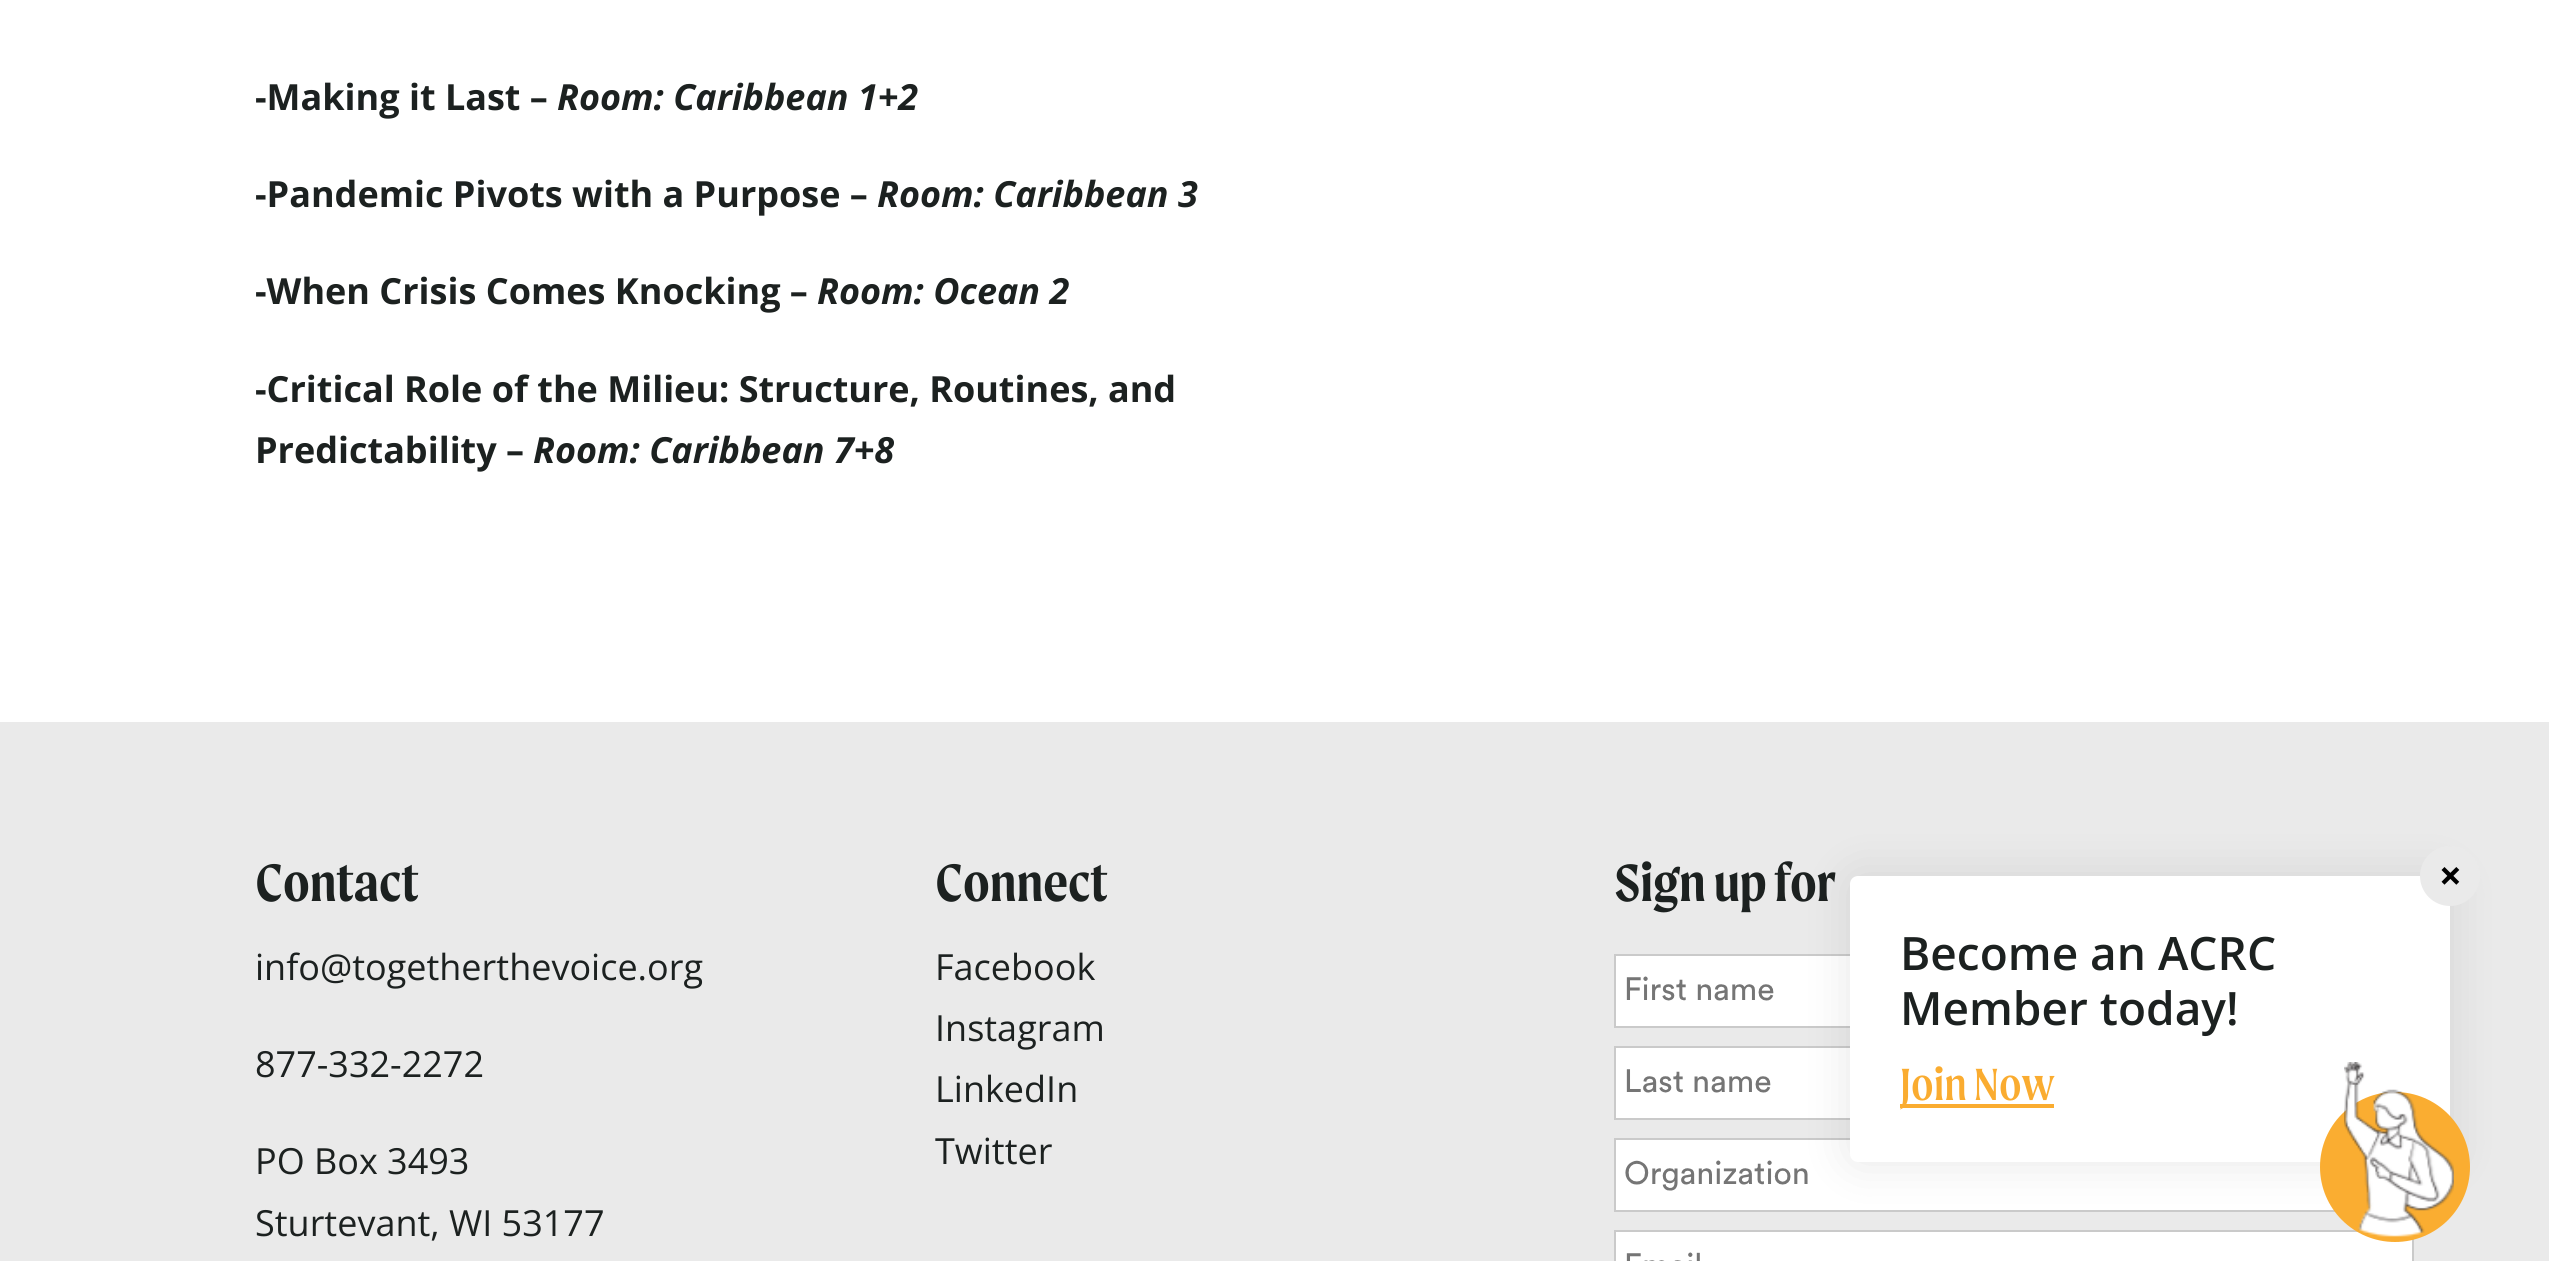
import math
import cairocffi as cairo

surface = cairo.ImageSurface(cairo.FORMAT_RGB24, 2549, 1261)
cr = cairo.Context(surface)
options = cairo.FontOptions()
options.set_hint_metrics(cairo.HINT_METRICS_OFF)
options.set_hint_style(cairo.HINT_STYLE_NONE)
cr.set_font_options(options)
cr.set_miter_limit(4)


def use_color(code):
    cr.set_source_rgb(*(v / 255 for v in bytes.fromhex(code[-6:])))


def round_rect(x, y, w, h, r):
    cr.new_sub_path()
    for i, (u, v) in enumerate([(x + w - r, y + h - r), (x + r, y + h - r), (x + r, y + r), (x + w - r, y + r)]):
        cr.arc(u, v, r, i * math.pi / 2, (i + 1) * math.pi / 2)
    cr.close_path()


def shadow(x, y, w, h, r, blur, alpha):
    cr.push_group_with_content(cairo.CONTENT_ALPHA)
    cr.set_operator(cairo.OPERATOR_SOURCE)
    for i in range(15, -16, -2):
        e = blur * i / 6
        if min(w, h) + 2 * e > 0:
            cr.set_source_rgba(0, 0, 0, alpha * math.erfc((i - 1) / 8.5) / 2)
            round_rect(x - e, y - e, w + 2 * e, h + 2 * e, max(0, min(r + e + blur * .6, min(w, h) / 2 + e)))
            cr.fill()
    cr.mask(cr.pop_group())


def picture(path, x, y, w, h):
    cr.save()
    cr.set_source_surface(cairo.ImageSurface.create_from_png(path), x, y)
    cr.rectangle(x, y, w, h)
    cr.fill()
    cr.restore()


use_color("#eaeaea")
cr.paint()
use_color("#ffffff")
cr.rectangle(0, 0, 2549, 722)
cr.fill()
cr.select_font_face("Open Sans", cairo.FONT_SLANT_NORMAL, cairo.FONT_WEIGHT_BOLD)
cr.set_font_size(36)
use_color("#1c2120")
cr.move_to(255, 110)
cr.show_text("-Making it Last –")
cr.select_font_face("Open Sans", cairo.FONT_SLANT_ITALIC, cairo.FONT_WEIGHT_BOLD)
cr.move_to(557, 110)
cr.show_text("Room: Caribbean 1+2")
cr.select_font_face("Open Sans", cairo.FONT_SLANT_NORMAL, cairo.FONT_WEIGHT_BOLD)
cr.move_to(255, 207)
cr.show_text("-Pandemic Pivots with a Purpose –")
cr.select_font_face("Open Sans", cairo.FONT_SLANT_ITALIC, cairo.FONT_WEIGHT_BOLD)
cr.move_to(877, 207)
cr.show_text("Room: Caribbean 3")
cr.select_font_face("Open Sans", cairo.FONT_SLANT_NORMAL, cairo.FONT_WEIGHT_BOLD)
cr.move_to(255, 304)
cr.show_text("-When Crisis Comes Knocking –")
cr.select_font_face("Open Sans", cairo.FONT_SLANT_ITALIC, cairo.FONT_WEIGHT_BOLD)
cr.move_to(817, 304)
cr.show_text("Room: Ocean 2")
cr.select_font_face("Open Sans", cairo.FONT_SLANT_NORMAL, cairo.FONT_WEIGHT_BOLD)
cr.move_to(255, 402)
cr.show_text("-Critical Role of the Milieu: Structure, Routines, and")
cr.move_to(255, 463)
cr.show_text("Predictability –")
cr.select_font_face("Open Sans", cairo.FONT_SLANT_ITALIC, cairo.FONT_WEIGHT_BOLD)
cr.move_to(533, 463)
cr.show_text("Room: Caribbean 7+8")
cr.select_font_face("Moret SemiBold")
cr.set_font_size(56)
cr.move_to(255, 901)
cr.show_text("Contact")
cr.select_font_face("Open Sans")
cr.set_font_size(36)
cr.move_to(255, 980)
cr.show_text("info@togetherthevoice.org")
cr.move_to(255, 1077)
cr.show_text("877-332-2272")
cr.move_to(255, 1174)
cr.show_text("PO Box 3493")
cr.move_to(255, 1236)
cr.show_text("Sturtevant, WI 53177")
cr.select_font_face("Moret SemiBold")
cr.set_font_size(56)
cr.move_to(935, 901)
cr.show_text("Connect")
cr.select_font_face("Open Sans")
cr.set_font_size(36)
cr.move_to(935, 980)
cr.show_text("Facebook")
cr.move_to(935, 1041)
cr.show_text("Instagram")
cr.move_to(935, 1102)
cr.show_text("LinkedIn")
cr.move_to(935, 1164)
cr.show_text("Twitter")
cr.select_font_face("Moret SemiBold")
cr.set_font_size(56)
cr.move_to(1615, 901)
cr.show_text("Sign up for")
picture("img1.png", 1614, 954, 800, 307)
use_color("#020202")
shadow(1850, 876, 600, 286, 8, 23, 0.1)
use_color("#ffffff")
round_rect(1850, 876, 600, 286, 8)
cr.fill()
use_color("#eaeaea")
cr.arc(2450, 876, 30, 0, 2 * math.pi)
cr.fill()
cr.select_font_face("Open Sans", cairo.FONT_SLANT_NORMAL, cairo.FONT_WEIGHT_BOLD)
cr.set_font_size(40)
use_color("#000000")
cr.move_to(2439, 890)
cr.show_text("×")
cr.select_font_face("Open Sans SemiBold")
cr.set_font_size(46)
use_color("#1c2120")
cr.move_to(1900, 970)
cr.show_text("Become an ACRC")
cr.move_to(1900, 1025)
cr.show_text("Member today!")
use_color("#faac30")
cr.rectangle(1900, 1104, 154, 4)
cr.fill()
cr.select_font_face("Moret")
cr.set_font_size(48)
cr.move_to(1900, 1100)
cr.show_text("Join Now")
use_color("#faad31")
cr.new_path()
cr.arc(2395, 1167, 75, 0, 2 * math.pi)
cr.fill()
picture("img2.png", 2344, 1062, 110, 175)
surface.write_to_png("result.png")
